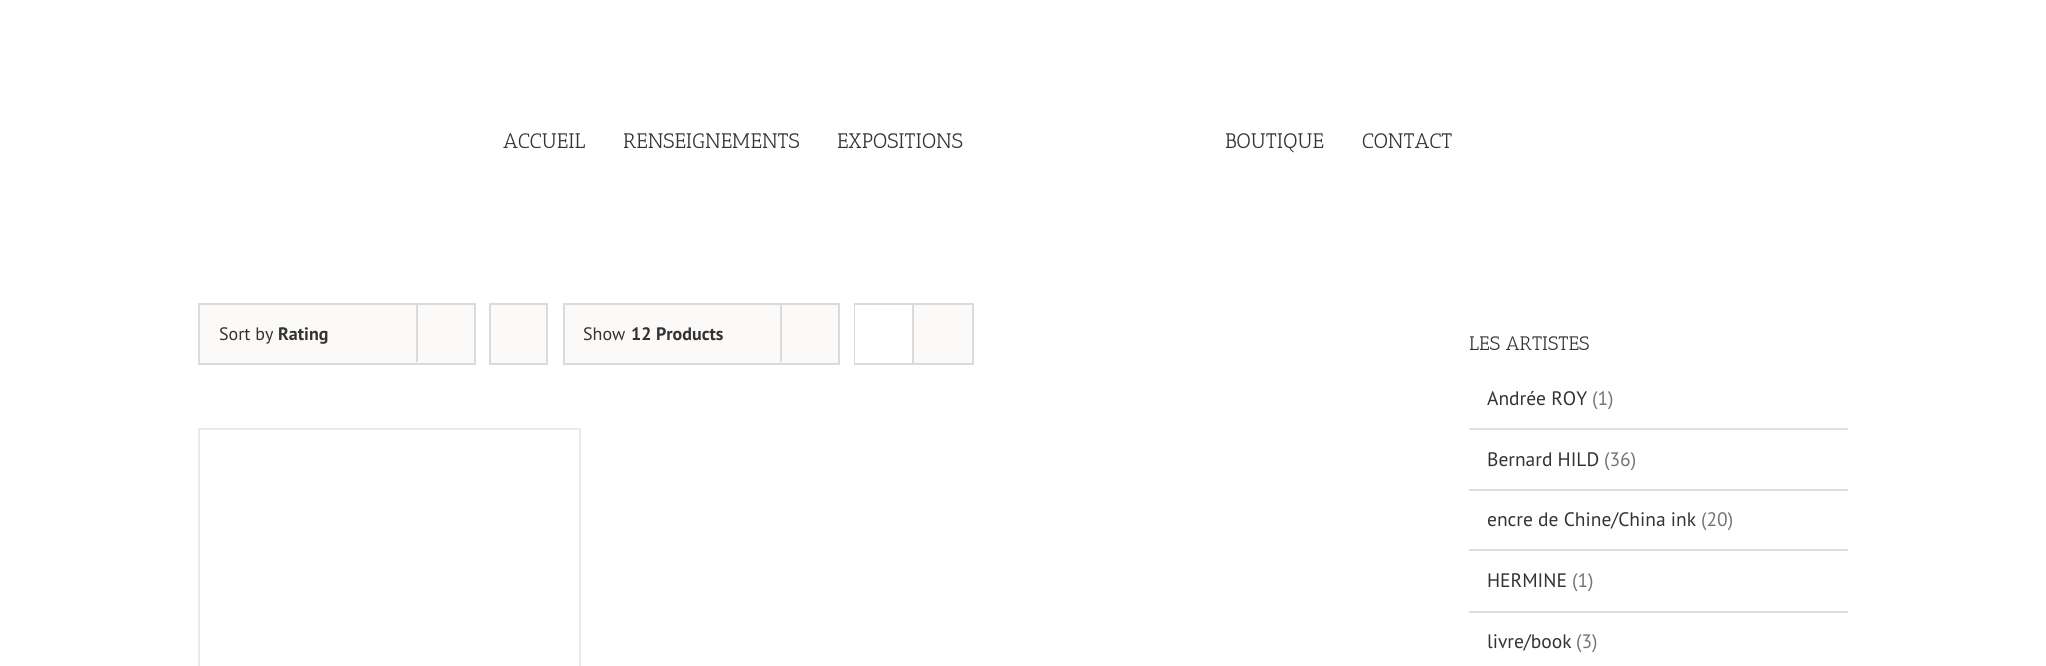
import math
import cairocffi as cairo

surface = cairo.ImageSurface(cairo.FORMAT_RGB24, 2046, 666)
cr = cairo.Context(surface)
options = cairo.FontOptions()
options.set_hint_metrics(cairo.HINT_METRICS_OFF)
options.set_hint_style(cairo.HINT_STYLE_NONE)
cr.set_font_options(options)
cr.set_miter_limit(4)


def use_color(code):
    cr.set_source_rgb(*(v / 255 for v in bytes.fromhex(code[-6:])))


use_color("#ffffff")
cr.paint()
cr.select_font_face("Antic Slab")
cr.set_font_size(21)
use_color("#333333")
cr.move_to(503, 148)
cr.show_text("ACCUEIL")
cr.move_to(623, 148)
cr.show_text("RENSEIGNEMENTS")
cr.move_to(837, 148)
cr.show_text("EXPOSITIONS")
cr.move_to(1225, 148)
cr.show_text("BOUTIQUE")
cr.move_to(1362, 148)
cr.show_text("CONTACT")
use_color("#fbfaf9")
cr.rectangle(199, 304, 276, 60)
cr.fill_preserve()
use_color("#dbdbdb")
cr.stroke()
cr.select_font_face("PT Sans")
cr.set_font_size(18)
use_color("#333333")
cr.move_to(219, 340)
cr.show_text("Sort by")
cr.select_font_face("PT Sans", cairo.FONT_SLANT_NORMAL, cairo.FONT_WEIGHT_BOLD)
cr.move_to(278, 340)
cr.show_text("Rating")
use_color("#dbdbdb")
cr.rectangle(416, 303, 2, 59)
cr.fill()
use_color("#fbfaf9")
cr.rectangle(490, 304, 57, 60)
cr.fill_preserve()
use_color("#dbdbdb")
cr.stroke()
use_color("#fbfaf9")
cr.rectangle(564, 304, 275, 60)
cr.fill_preserve()
use_color("#dbdbdb")
cr.stroke()
cr.select_font_face("PT Sans")
use_color("#333333")
cr.move_to(583, 340)
cr.show_text("Show")
cr.select_font_face("PT Sans", cairo.FONT_SLANT_NORMAL, cairo.FONT_WEIGHT_BOLD)
cr.move_to(631, 340)
cr.show_text("12 Products")
use_color("#dbdbdb")
cr.rectangle(780, 303, 2, 59)
cr.fill()
cr.rectangle(855, 304, 118, 60)
cr.stroke()
use_color("#ffffff")
cr.rectangle(855, 305, 1, 58)
cr.fill()
use_color("#dbdbdb")
cr.rectangle(912, 305, 2, 58)
cr.fill()
use_color("#fbfaf9")
cr.rectangle(914, 305, 58, 58)
cr.fill()
use_color("#ebeaea")
cr.rectangle(198, 428, 383, 2)
cr.fill()
cr.rectangle(579, 428, 2, 238)
cr.fill()
cr.rectangle(198, 428, 2, 238)
cr.fill()
cr.select_font_face("Antic Slab")
cr.set_font_size(19.5)
use_color("#333333")
cr.move_to(1469, 350)
cr.show_text("LES ARTISTES")
use_color("#e0dede")
cr.rectangle(1469, 428, 379, 2)
cr.fill()
cr.select_font_face("PT Sans")
use_color("#333333")
cr.move_to(1487, 405)
cr.show_text("Andrée ROY")
use_color("#747474")
cr.move_to(1592, 405)
cr.show_text("(1)")
use_color("#e0dede")
cr.rectangle(1469, 489, 379, 2)
cr.fill()
use_color("#333333")
cr.move_to(1487, 466)
cr.show_text("Bernard HILD")
use_color("#747474")
cr.move_to(1604, 466)
cr.show_text("(36)")
use_color("#e0dede")
cr.rectangle(1469, 549, 379, 2)
cr.fill()
use_color("#333333")
cr.move_to(1487, 526)
cr.show_text("encre de Chine/China ink")
use_color("#747474")
cr.move_to(1701, 526)
cr.show_text("(20)")
use_color("#e0dede")
cr.rectangle(1469, 611, 379, 2)
cr.fill()
use_color("#333333")
cr.move_to(1487, 587)
cr.show_text("HERMINE")
use_color("#747474")
cr.move_to(1572, 587)
cr.show_text("(1)")
use_color("#333333")
cr.move_to(1487, 648)
cr.show_text("livre/book")
use_color("#747474")
cr.move_to(1576, 648)
cr.show_text("(3)")
surface.write_to_png("result.png")
